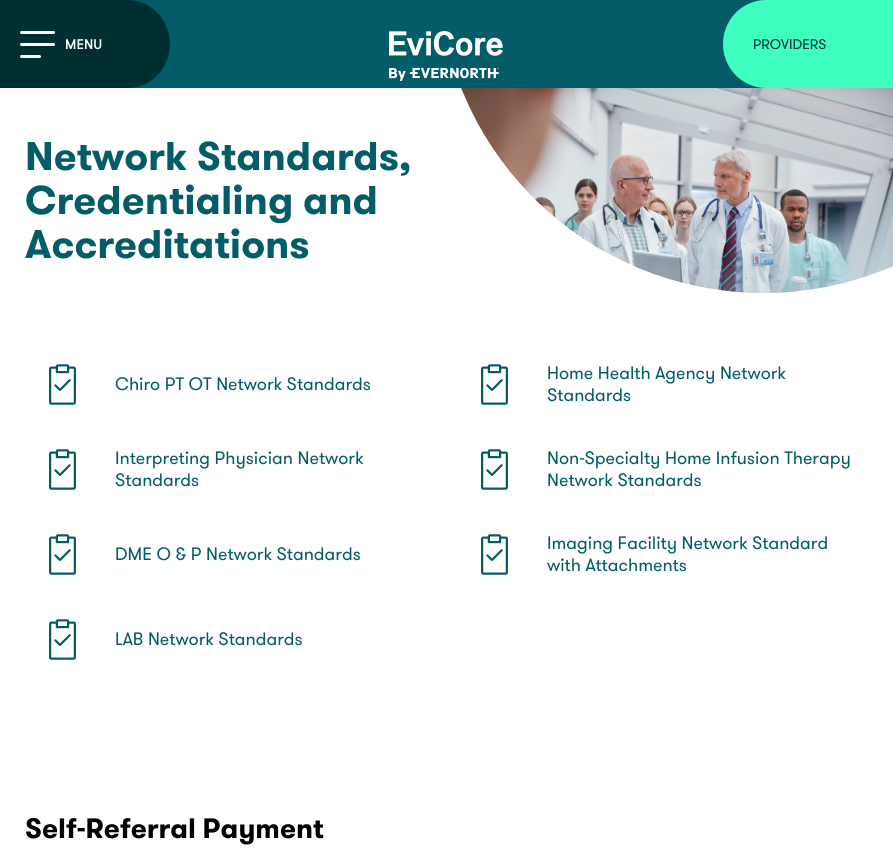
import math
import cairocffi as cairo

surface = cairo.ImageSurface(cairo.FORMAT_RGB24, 893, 860)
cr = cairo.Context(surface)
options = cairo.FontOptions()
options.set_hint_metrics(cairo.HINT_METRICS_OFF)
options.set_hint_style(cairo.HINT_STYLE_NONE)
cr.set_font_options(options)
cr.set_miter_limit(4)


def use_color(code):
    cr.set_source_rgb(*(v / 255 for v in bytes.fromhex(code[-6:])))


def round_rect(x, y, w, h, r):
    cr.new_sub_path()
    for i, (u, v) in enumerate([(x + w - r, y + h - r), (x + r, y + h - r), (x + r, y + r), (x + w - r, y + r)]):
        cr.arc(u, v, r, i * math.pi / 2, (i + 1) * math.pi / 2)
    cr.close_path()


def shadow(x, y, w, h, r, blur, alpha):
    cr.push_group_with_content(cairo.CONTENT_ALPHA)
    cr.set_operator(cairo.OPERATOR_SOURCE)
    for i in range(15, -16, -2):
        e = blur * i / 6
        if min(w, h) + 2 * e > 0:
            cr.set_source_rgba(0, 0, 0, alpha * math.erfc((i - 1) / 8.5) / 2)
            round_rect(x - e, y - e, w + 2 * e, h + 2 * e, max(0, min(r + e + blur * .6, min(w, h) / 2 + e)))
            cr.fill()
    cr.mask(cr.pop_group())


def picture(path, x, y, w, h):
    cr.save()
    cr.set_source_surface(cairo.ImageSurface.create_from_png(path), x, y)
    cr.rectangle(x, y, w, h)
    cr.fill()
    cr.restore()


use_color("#ffffff")
cr.paint()
picture("img2.png", 461, 88, 432, 205)
use_color("#000000")
shadow(0, 0, 893, 88, 0, 6.5, 0.07)
use_color("#035c67")
cr.rectangle(128, 0, 638, 88)
cr.fill()
use_color("#002f32")
cr.new_path()
cr.move_to(0, 0)
cr.line_to(128, 0)
cr.curve_to(151, 0, 170, 20, 170, 44)
cr.curve_to(170, 68, 151, 88, 128, 88)
cr.line_to(0, 88)
cr.close_path()
cr.fill()
use_color("#ffffff")
round_rect(20, 43, 35, 3, 1.5)
cr.fill()
round_rect(20, 31, 35, 3, 1.5)
cr.fill()
round_rect(20, 55, 21, 3, 1.5)
cr.fill()
cr.select_font_face("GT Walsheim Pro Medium")
cr.set_font_size(14)
cr.move_to(65, 49)
cr.show_text("MENU")
picture("img1.png", 389, 31, 114, 50)
use_color("#3effc0")
cr.new_path()
cr.move_to(766, 0)
cr.line_to(893, 0)
cr.line_to(893, 88)
cr.line_to(766, 88)
cr.curve_to(742, 88, 723, 68, 723, 44)
cr.curve_to(723, 20, 742, 0, 766, 0)
cr.close_path()
cr.fill()
cr.select_font_face("GT Walsheim Pro")
use_color("#002f32")
cr.move_to(753, 49)
cr.show_text("PROVIDERS")
cr.select_font_face("GT Walsheim Pro", cairo.FONT_SLANT_NORMAL, cairo.FONT_WEIGHT_BOLD)
cr.set_font_size(40)
use_color("#035c67")
cr.move_to(25, 170)
cr.show_text("Network Standards,")
cr.move_to(25, 214)
cr.show_text("Credentialing and")
cr.move_to(25, 258)
cr.show_text("Accreditations")
picture("img3.png", 49, 364, 27, 41)
cr.select_font_face("GT Walsheim Pro")
cr.set_font_size(18)
cr.move_to(115, 390)
cr.show_text("Chiro PT OT Network Standards")
picture("img3.png", 481, 364, 27, 41)
cr.move_to(547, 379)
cr.show_text("Home Health Agency Network")
cr.move_to(547, 401)
cr.show_text("Standards")
picture("img3.png", 49, 449, 27, 41)
cr.move_to(115, 464)
cr.show_text("Interpreting Physician Network")
cr.move_to(115, 486)
cr.show_text("Standards")
picture("img3.png", 481, 449, 27, 41)
cr.move_to(547, 464)
cr.show_text("Non-Specialty Home Infusion Therapy")
cr.move_to(547, 486)
cr.show_text("Network Standards")
picture("img3.png", 49, 534, 27, 41)
cr.move_to(115, 560)
cr.show_text("DME O & P Network Standards")
picture("img3.png", 481, 534, 27, 41)
cr.move_to(547, 549)
cr.show_text("Imaging Facility Network Standard")
cr.move_to(547, 571)
cr.show_text("with Attachments")
picture("img3.png", 49, 619, 27, 41)
cr.move_to(115, 645)
cr.show_text("LAB Network Standards")
cr.select_font_face("GT Walsheim Pro", cairo.FONT_SLANT_NORMAL, cairo.FONT_WEIGHT_BOLD)
cr.set_font_size(28)
use_color("#000000")
cr.move_to(25, 838)
cr.show_text("Self-Referral Payment")
surface.write_to_png("result.png")
